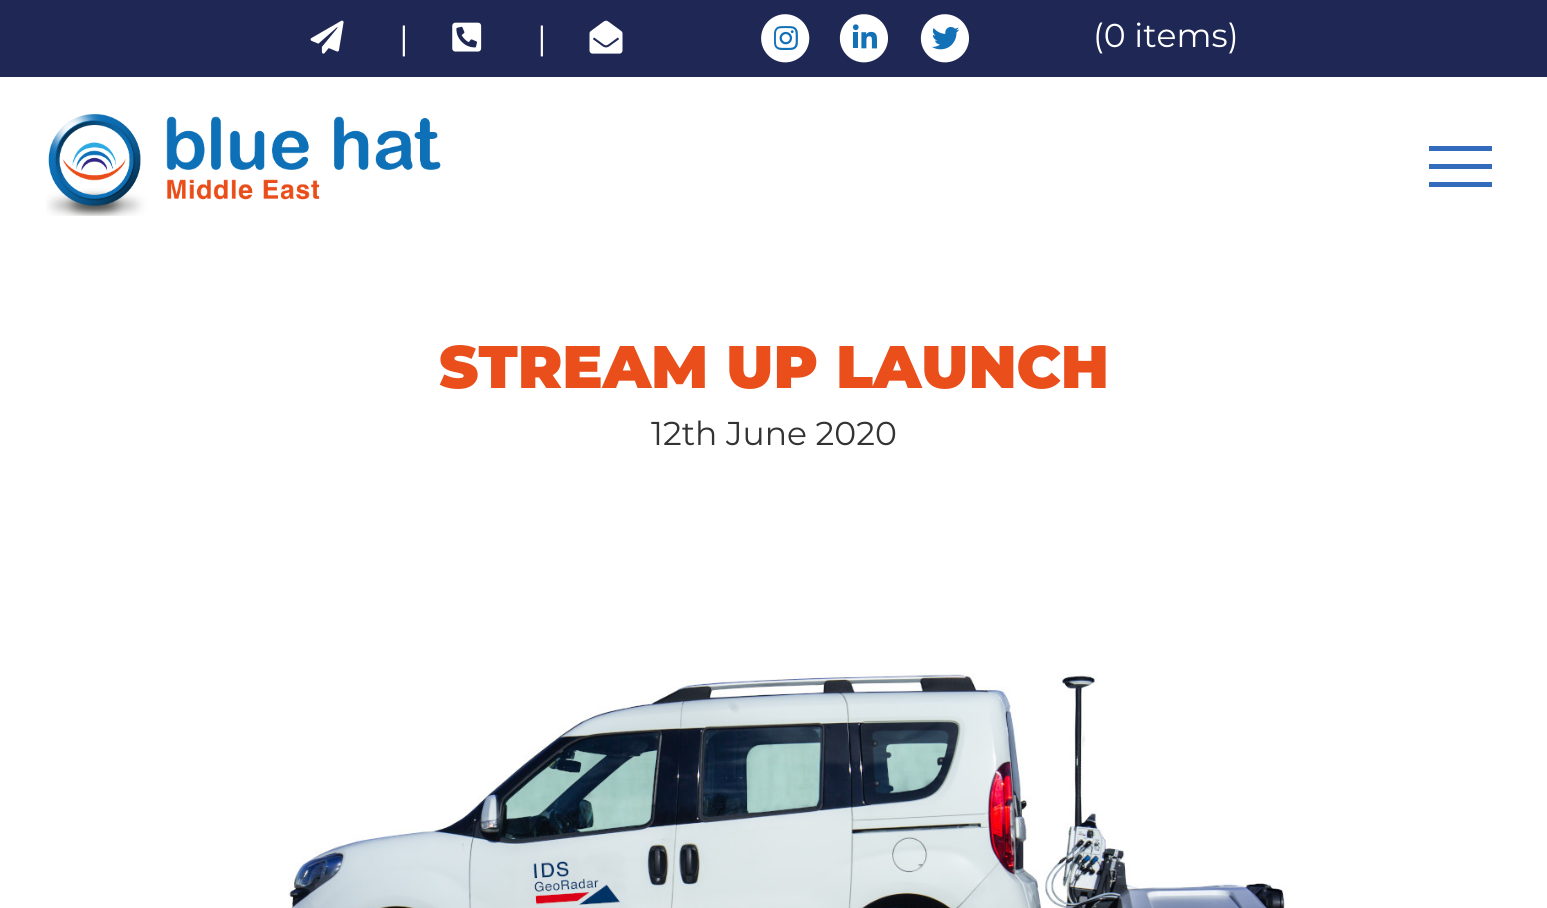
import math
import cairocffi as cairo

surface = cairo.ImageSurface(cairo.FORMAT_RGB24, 1547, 908)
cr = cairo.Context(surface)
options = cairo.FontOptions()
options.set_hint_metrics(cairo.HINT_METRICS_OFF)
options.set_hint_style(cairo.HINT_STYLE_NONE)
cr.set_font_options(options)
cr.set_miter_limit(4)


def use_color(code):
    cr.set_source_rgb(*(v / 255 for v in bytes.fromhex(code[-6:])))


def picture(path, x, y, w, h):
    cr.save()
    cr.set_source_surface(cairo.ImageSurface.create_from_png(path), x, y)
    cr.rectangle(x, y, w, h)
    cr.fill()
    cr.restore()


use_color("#ffffff")
cr.paint()
use_color("#1f2855")
cr.rectangle(0, 0, 1547, 77)
cr.fill()
picture("img1.png", 310, 20, 34, 34)
cr.select_font_face("Montserrat")
cr.set_font_size(33)
use_color("#ffffff")
cr.move_to(399, 50)
cr.show_text("|")
picture("img2.png", 452, 22, 30, 30)
cr.move_to(537, 50)
cr.show_text("|")
picture("img3.png", 589, 20, 34, 34)
picture("img4.png", 761, 14, 49, 49)
picture("img5.png", 839, 14, 49, 49)
picture("img6.png", 920, 14, 49, 49)
cr.move_to(1093, 47)
cr.show_text("(0 items)")
picture("img7.png", 46, 114, 395, 102)
use_color("#336cbc")
cr.rectangle(1429, 146, 63, 5)
cr.fill()
cr.rectangle(1429, 164, 63, 5)
cr.fill()
cr.rectangle(1429, 182, 63, 5)
cr.fill()
cr.select_font_face("Montserrat Black")
cr.set_font_size(60)
use_color("#e94e1b")
cr.move_to(439, 388)
cr.show_text("STREAM UP LAUNCH")
cr.select_font_face("Montserrat")
cr.set_font_size(33)
use_color("#333333")
cr.move_to(651, 445)
cr.show_text("12th June 2020")
picture("img8.png", 288, 673, 999, 235)
surface.write_to_png("result.png")
